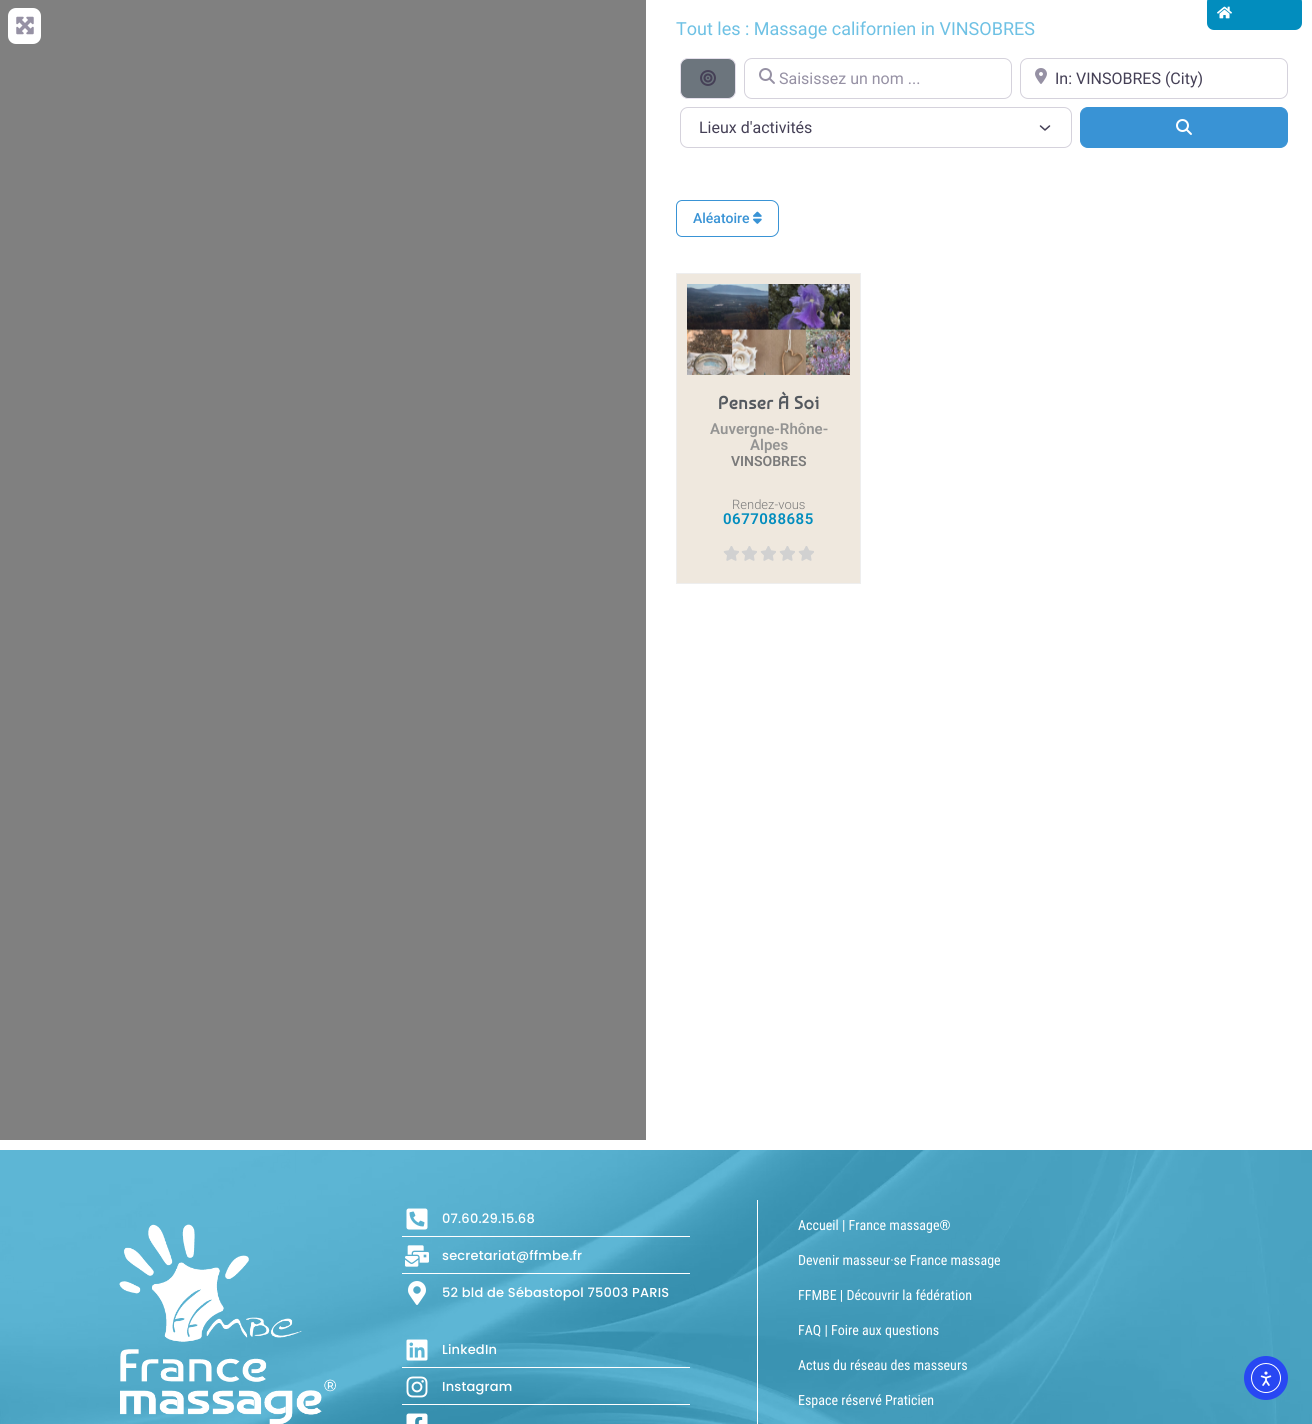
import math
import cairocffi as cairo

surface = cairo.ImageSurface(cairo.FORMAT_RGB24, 1312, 1424)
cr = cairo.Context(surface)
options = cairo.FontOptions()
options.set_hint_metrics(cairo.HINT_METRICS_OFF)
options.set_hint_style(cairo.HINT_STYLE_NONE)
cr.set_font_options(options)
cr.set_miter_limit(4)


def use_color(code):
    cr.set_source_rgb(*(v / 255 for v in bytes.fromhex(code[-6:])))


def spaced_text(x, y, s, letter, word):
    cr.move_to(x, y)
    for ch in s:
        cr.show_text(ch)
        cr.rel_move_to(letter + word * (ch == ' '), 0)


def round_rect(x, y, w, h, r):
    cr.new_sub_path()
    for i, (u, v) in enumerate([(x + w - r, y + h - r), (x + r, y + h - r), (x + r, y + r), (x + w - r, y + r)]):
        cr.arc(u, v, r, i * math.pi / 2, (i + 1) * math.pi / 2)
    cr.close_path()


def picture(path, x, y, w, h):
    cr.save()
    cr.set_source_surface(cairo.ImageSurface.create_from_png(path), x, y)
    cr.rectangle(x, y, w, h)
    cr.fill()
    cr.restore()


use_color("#ffffff")
cr.paint()
use_color("#808080")
cr.rectangle(0, 0, 646, 1140)
cr.fill()
use_color("#ffffff")
round_rect(8, 8, 33, 36, 8)
cr.fill()
picture("img1.png", 16, 16, 18, 19)
cr.select_font_face("Roboto")
cr.set_font_size(18)
use_color("#6ec1e4")
cr.move_to(676, 35)
cr.show_text("Tout les : Massage californien in VINSOBRES")
use_color("#028dbe")
round_rect(1207, -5, 95, 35, 7)
cr.fill()
picture("img2.png", 1217, 6, 15, 13)
use_color("#6c757d")
round_rect(680.5, 58.5, 55, 40, 7.5)
cr.fill_preserve()
use_color("#e4dfeb")
cr.set_line_width(1)
cr.stroke()
picture("img3.png", 700, 70, 16, 16)
round_rect(744.5, 58.5, 267, 40, 7.5)
use_color("#d5d2dc")
cr.stroke()
picture("img4.png", 759, 68, 16, 16)
cr.set_font_size(16)
use_color("#9691a4")
cr.move_to(779, 84)
cr.show_text("Saisissez un nom ...")
round_rect(1020.5, 58.5, 267, 40, 7.5)
use_color("#d5d2dc")
cr.stroke()
picture("img5.png", 1035, 68, 12, 16)
use_color("#454056")
cr.move_to(1055, 84)
cr.show_text("In: VINSOBRES (City)")
cr.new_path()
cr.move_to(1040.5, 126)
cr.line_to(1045, 130)
cr.line_to(1049.5, 126)
cr.set_line_width(1.5)
cr.set_line_cap(cairo.LINE_CAP_ROUND)
cr.set_line_join(cairo.LINE_JOIN_ROUND)
cr.stroke()
round_rect(680.5, 107.5, 391, 40, 7.5)
use_color("#d5d2dc")
cr.set_line_width(1)
cr.set_line_cap(cairo.LINE_CAP_BUTT)
cr.set_line_join(cairo.LINE_JOIN_MITER)
cr.stroke()
use_color("#454056")
cr.move_to(699, 133)
cr.show_text("Lieux d'activités")
use_color("#3993d5")
round_rect(1080.5, 107.5, 207, 40, 7.5)
cr.fill_preserve()
cr.stroke()
picture("img6.png", 1176, 119, 16, 16)
cr.new_path()
cr.move_to(682, 200.5)
cr.line_to(771, 200.5)
cr.curve_to(775, 200.5, 778.5, 204, 778.5, 208)
cr.line_to(778.5, 229)
cr.curve_to(778.5, 233, 775, 236.5, 771, 236.5)
cr.line_to(682, 236.5)
cr.curve_to(679, 236.5, 676.5, 234, 676.5, 231)
cr.line_to(676.5, 206)
cr.curve_to(676.5, 203, 679, 200.5, 682, 200.5)
cr.close_path()
cr.stroke()
cr.select_font_face("Roboto Medium")
cr.set_font_size(14)
cr.move_to(693, 223)
cr.show_text("Aléatoire")
picture("img7.png", 753, 211, 9, 13)
cr.rectangle(676.5, 273.5, 184, 310)
use_color("#eeeeee")
cr.stroke()
use_color("#efe8de")
cr.rectangle(677, 274, 183, 309)
cr.fill()
picture("img8.png", 687, 284, 163, 91)
cr.select_font_face("Baumans", cairo.FONT_SLANT_NORMAL, cairo.FONT_WEIGHT_BOLD)
cr.set_font_size(18)
use_color("#54595f")
spaced_text(718, 409, "Penser À Soi", 0.5, 0)
cr.select_font_face("Roboto SemiBold")
cr.set_font_size(15)
use_color("#949493")
cr.move_to(710, 434)
cr.show_text("Auvergne-Rhône-")
cr.move_to(750, 450)
cr.show_text("Alpes")
cr.set_font_size(14)
use_color("#7a7a7a")
cr.move_to(731, 466)
cr.show_text("VINSOBRES")
cr.select_font_face("Roboto Light")
cr.set_font_size(13)
cr.move_to(732, 509)
cr.show_text("Rendez-vous")
cr.select_font_face("Roboto SemiBold")
cr.set_font_size(15)
use_color("#028dbe")
spaced_text(723, 524, "0677088685", 0.5, 0)
picture("img9.png", 723, 546, 16, 15)
picture("img9.png", 741, 546, 16, 15)
picture("img9.png", 760, 546, 16, 15)
picture("img9.png", 779, 546, 16, 15)
picture("img9.png", 798, 546, 16, 15)
cr.rectangle(0, 1150, 1312, 274)
cr.fill()
picture("img10.png", 0, 1150, 1312, 274)
picture("img11.png", 119, 1224, 217, 200)
picture("img12.png", 406, 1208, 22, 22)
cr.select_font_face("Poppins Medium")
cr.set_font_size(13)
use_color("#ffffff")
spaced_text(442, 1223, "07.60.29.15.68", 0.2, 0)
cr.rectangle(402, 1236, 288, 1)
cr.fill()
picture("img13.png", 405, 1245, 24, 22)
spaced_text(442, 1260, "secretariat@ffmbe.fr", 0.2, 0)
cr.rectangle(402, 1273, 288, 1)
cr.fill()
picture("img14.png", 408, 1281, 18, 24)
spaced_text(442, 1297, "52 bld de Sébastopol 75003 PARIS", 0.2, 0)
picture("img15.png", 406, 1339, 22, 22)
spaced_text(442, 1354, "LinkedIn", 0.2, 0)
cr.rectangle(402, 1367, 288, 1)
cr.fill()
picture("img16.png", 406, 1376, 22, 22)
spaced_text(442, 1391, "Instagram", 0.2, 0)
cr.rectangle(402, 1404, 288, 1)
cr.fill()
picture("img17.png", 406, 1413, 22, 11)
cr.rectangle(757, 1200, 1, 224)
cr.fill()
cr.select_font_face("Roboto Condensed")
cr.set_font_size(14)
cr.move_to(798, 1230)
cr.show_text("Accueil | France massage®")
cr.move_to(798, 1265)
cr.show_text("Devenir masseur·se France massage")
cr.move_to(798, 1300)
cr.show_text("FFMBE | Découvrir la fédération")
cr.move_to(798, 1335)
cr.show_text("FAQ | Foire aux questions")
cr.move_to(798, 1370)
cr.show_text("Actus du réseau des masseurs")
cr.move_to(798, 1405)
cr.show_text("Espace réservé Praticien")
use_color("#2847f3")
cr.new_path()
cr.arc(1266, 1378, 22, 0, 2 * math.pi)
cr.fill()
cr.arc(1266, 1378, 14.5, 0, 2 * math.pi)
use_color("#ffffff")
cr.stroke()
picture("img18.png", 1260, 1371, 12, 15)
surface.write_to_png("result.png")
